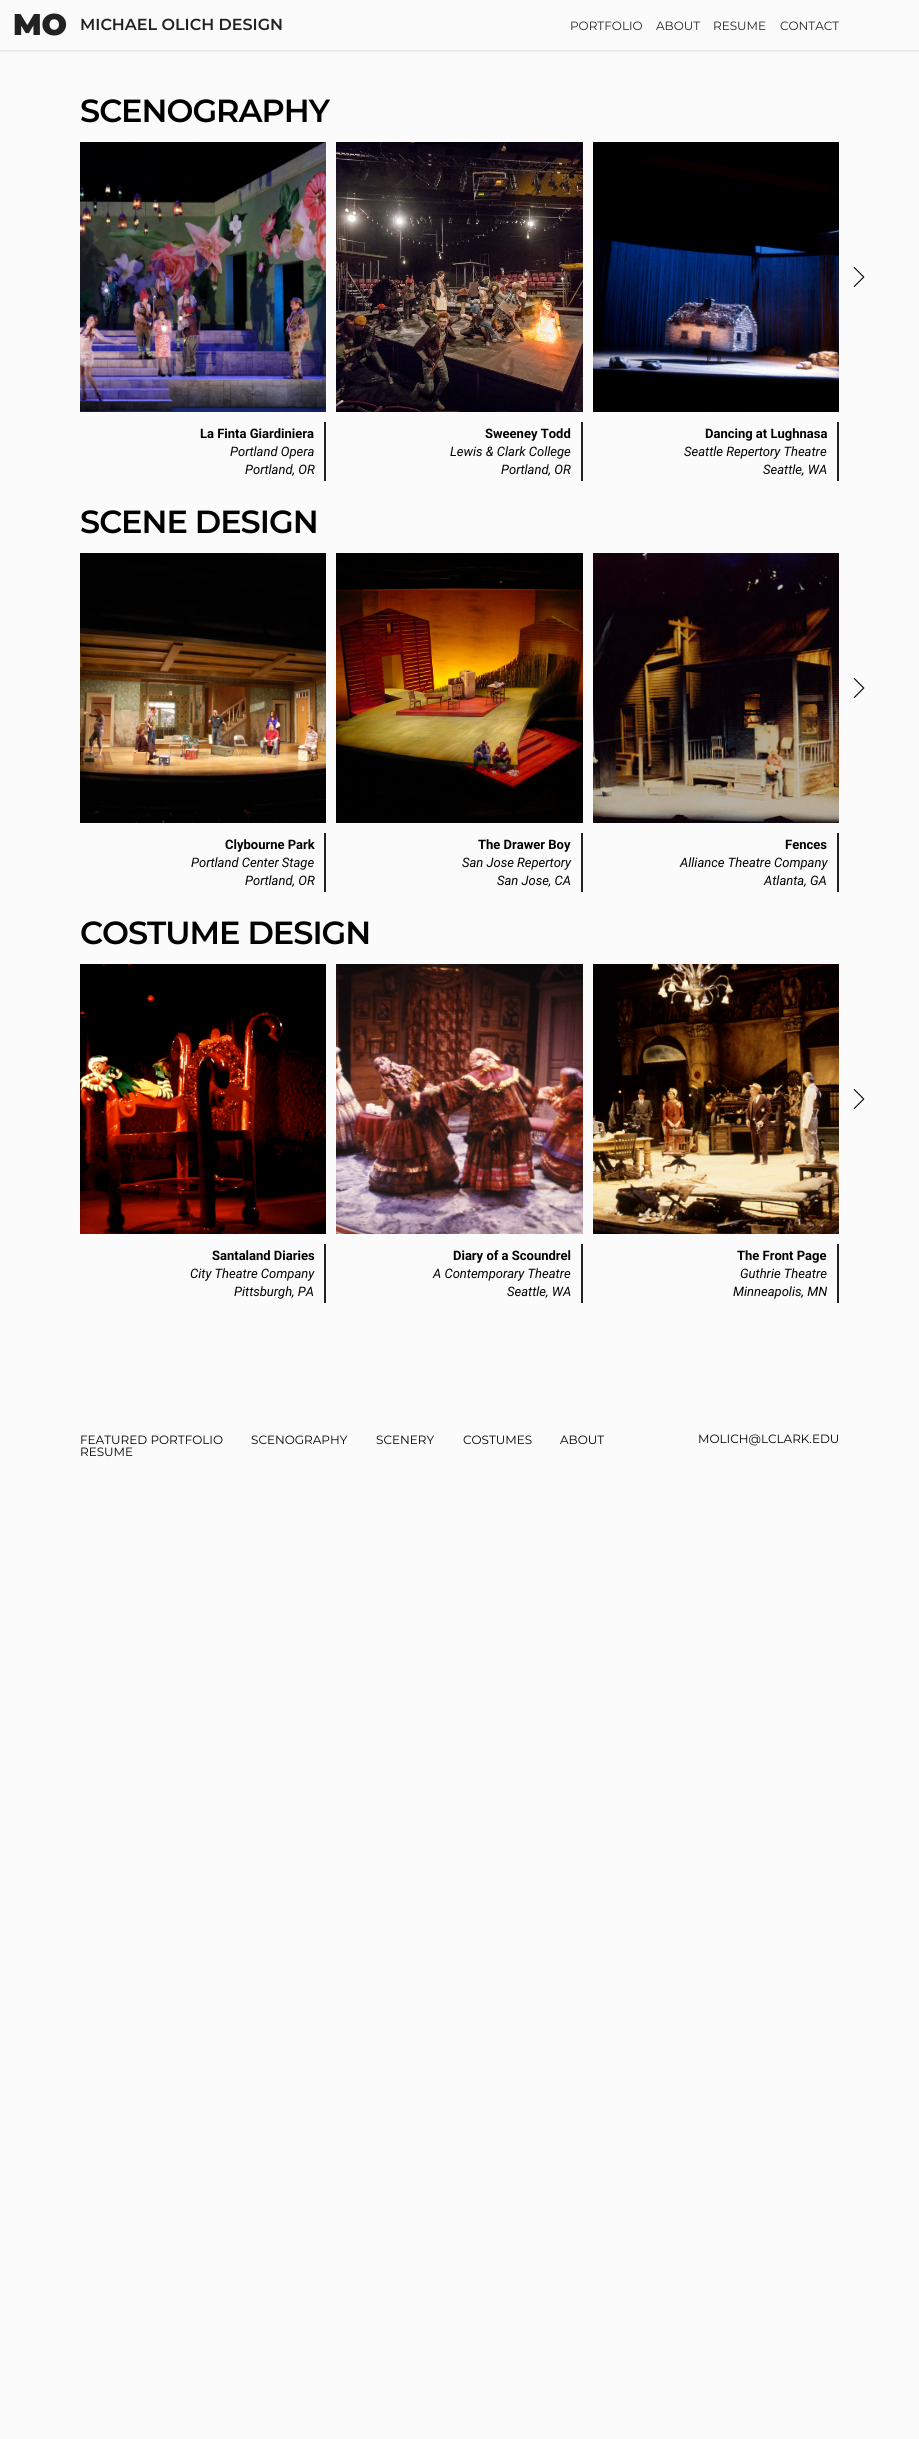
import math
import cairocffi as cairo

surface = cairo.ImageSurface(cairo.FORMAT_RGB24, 919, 2439)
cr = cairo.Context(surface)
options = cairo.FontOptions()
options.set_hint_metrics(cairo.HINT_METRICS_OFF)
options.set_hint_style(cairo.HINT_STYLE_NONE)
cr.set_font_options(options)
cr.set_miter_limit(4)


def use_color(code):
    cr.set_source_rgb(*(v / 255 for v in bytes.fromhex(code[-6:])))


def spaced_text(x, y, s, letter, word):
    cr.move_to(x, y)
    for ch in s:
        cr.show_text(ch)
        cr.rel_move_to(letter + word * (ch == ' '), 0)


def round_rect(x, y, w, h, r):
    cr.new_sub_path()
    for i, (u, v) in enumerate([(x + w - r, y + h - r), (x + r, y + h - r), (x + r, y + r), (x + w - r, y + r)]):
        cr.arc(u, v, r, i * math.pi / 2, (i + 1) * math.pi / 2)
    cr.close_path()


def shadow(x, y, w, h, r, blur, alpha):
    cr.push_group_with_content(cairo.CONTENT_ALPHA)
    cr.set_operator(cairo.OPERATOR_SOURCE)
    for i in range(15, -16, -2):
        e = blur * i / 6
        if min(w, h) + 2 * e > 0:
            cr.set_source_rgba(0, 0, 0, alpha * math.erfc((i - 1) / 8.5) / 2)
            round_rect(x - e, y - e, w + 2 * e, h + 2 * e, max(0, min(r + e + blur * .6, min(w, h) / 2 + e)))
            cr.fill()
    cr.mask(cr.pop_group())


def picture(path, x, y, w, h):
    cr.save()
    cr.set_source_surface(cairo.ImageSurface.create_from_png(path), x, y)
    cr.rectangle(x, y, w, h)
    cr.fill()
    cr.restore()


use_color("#fbfbfb")
cr.paint()
cr.save()
cr.rectangle(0, 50, 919, 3)
cr.clip()
use_color("#dddddd")
shadow(0, 1, 919, 50, 0, 1, 1)
cr.restore()
cr.select_font_face("Montserrat Black")
cr.set_font_size(30)
use_color("#222222")
cr.move_to(13, 35)
cr.show_text("MO")
cr.select_font_face("Montserrat SemiBold")
cr.set_font_size(16)
cr.move_to(80, 30)
cr.show_text("MICHAEL OLICH DESIGN")
cr.select_font_face("Montserrat")
cr.set_font_size(12)
cr.move_to(570, 30)
cr.show_text("PORTFOLIO")
cr.move_to(656, 30)
cr.show_text("ABOUT")
cr.move_to(713, 30)
cr.show_text("RESUME")
cr.move_to(780, 30)
cr.show_text("CONTACT")
cr.select_font_face("Montserrat SemiBold")
cr.set_font_size(32)
use_color("#000000")
spaced_text(80, 122, "SCENOGRAPHY", -1, 0)
picture("img1.png", 853, 267, 12, 20)
picture("img2.png", 80, 142, 246, 270)
use_color("#222222")
cr.rectangle(324, 422, 2, 59)
cr.fill()
cr.select_font_face("Roboto", cairo.FONT_SLANT_NORMAL, cairo.FONT_WEIGHT_BOLD)
cr.set_font_size(13)
use_color("#000000")
cr.move_to(200, 438)
cr.show_text("La Finta Giardiniera")
cr.select_font_face("Roboto", cairo.FONT_SLANT_ITALIC)
cr.move_to(230, 456)
cr.show_text("Portland Opera")
cr.move_to(245, 474)
cr.show_text("Portland, OR")
picture("img3.png", 336, 142, 247, 270)
use_color("#222222")
cr.rectangle(581, 422, 2, 59)
cr.fill()
cr.select_font_face("Roboto", cairo.FONT_SLANT_NORMAL, cairo.FONT_WEIGHT_BOLD)
use_color("#000000")
cr.move_to(485, 438)
cr.show_text("Sweeney Todd")
cr.select_font_face("Roboto", cairo.FONT_SLANT_ITALIC)
cr.move_to(450, 456)
cr.show_text("Lewis & Clark College")
cr.move_to(501, 474)
cr.show_text("Portland, OR")
picture("img4.png", 593, 142, 246, 270)
use_color("#222222")
cr.rectangle(837, 422, 2, 59)
cr.fill()
cr.select_font_face("Roboto", cairo.FONT_SLANT_NORMAL, cairo.FONT_WEIGHT_BOLD)
use_color("#000000")
cr.move_to(705, 438)
cr.show_text("Dancing at Lughnasa")
cr.select_font_face("Roboto", cairo.FONT_SLANT_ITALIC)
cr.move_to(684, 456)
cr.show_text("Seattle Repertory Theatre")
cr.move_to(763, 474)
cr.show_text("Seattle, WA")
cr.select_font_face("Montserrat SemiBold")
cr.set_font_size(32)
spaced_text(80, 533, "SCENE DESIGN", -1, 0)
picture("img5.png", 853, 678, 12, 20)
picture("img6.png", 80, 553, 246, 270)
use_color("#222222")
cr.rectangle(324, 833, 2, 59)
cr.fill()
cr.select_font_face("Roboto", cairo.FONT_SLANT_NORMAL, cairo.FONT_WEIGHT_BOLD)
cr.set_font_size(13)
use_color("#000000")
cr.move_to(225, 849)
cr.show_text("Clybourne Park")
cr.select_font_face("Roboto", cairo.FONT_SLANT_ITALIC)
cr.move_to(191, 867)
cr.show_text("Portland Center Stage")
cr.move_to(245, 885)
cr.show_text("Portland, OR")
picture("img7.png", 336, 553, 247, 270)
use_color("#222222")
cr.rectangle(581, 833, 2, 59)
cr.fill()
cr.select_font_face("Roboto", cairo.FONT_SLANT_NORMAL, cairo.FONT_WEIGHT_BOLD)
use_color("#000000")
cr.move_to(478, 849)
cr.show_text("The Drawer Boy")
cr.select_font_face("Roboto", cairo.FONT_SLANT_ITALIC)
cr.move_to(462, 867)
cr.show_text("San Jose Repertory")
cr.move_to(497, 885)
cr.show_text("San Jose, CA")
picture("img8.png", 593, 553, 246, 270)
use_color("#222222")
cr.rectangle(837, 833, 2, 59)
cr.fill()
cr.select_font_face("Roboto", cairo.FONT_SLANT_NORMAL, cairo.FONT_WEIGHT_BOLD)
use_color("#000000")
cr.move_to(785, 849)
cr.show_text("Fences")
cr.select_font_face("Roboto", cairo.FONT_SLANT_ITALIC)
cr.move_to(680, 867)
cr.show_text("Alliance Theatre Company")
cr.move_to(764, 885)
cr.show_text("Atlanta, GA")
cr.select_font_face("Montserrat SemiBold")
cr.set_font_size(32)
spaced_text(80, 944, "COSTUME DESIGN", -1, 0)
picture("img5.png", 853, 1089, 12, 20)
picture("img9.png", 80, 964, 246, 270)
use_color("#222222")
cr.rectangle(324, 1244, 2, 59)
cr.fill()
cr.select_font_face("Roboto", cairo.FONT_SLANT_NORMAL, cairo.FONT_WEIGHT_BOLD)
cr.set_font_size(13)
use_color("#000000")
cr.move_to(212, 1260)
cr.show_text("Santaland Diaries")
cr.select_font_face("Roboto", cairo.FONT_SLANT_ITALIC)
cr.move_to(190, 1278)
cr.show_text("City Theatre Company")
cr.move_to(234, 1296)
cr.show_text("Pittsburgh, PA")
picture("img10.png", 336, 964, 247, 270)
use_color("#222222")
cr.rectangle(581, 1244, 2, 59)
cr.fill()
cr.select_font_face("Roboto", cairo.FONT_SLANT_NORMAL, cairo.FONT_WEIGHT_BOLD)
use_color("#000000")
cr.move_to(453, 1260)
cr.show_text("Diary of a Scoundrel")
cr.select_font_face("Roboto", cairo.FONT_SLANT_ITALIC)
cr.move_to(433, 1278)
cr.show_text("A Contemporary Theatre")
cr.move_to(507, 1296)
cr.show_text("Seattle, WA")
picture("img11.png", 593, 964, 246, 270)
use_color("#222222")
cr.rectangle(837, 1244, 2, 59)
cr.fill()
cr.select_font_face("Roboto", cairo.FONT_SLANT_NORMAL, cairo.FONT_WEIGHT_BOLD)
use_color("#000000")
cr.move_to(737, 1260)
cr.show_text("The Front Page")
cr.select_font_face("Roboto", cairo.FONT_SLANT_ITALIC)
cr.move_to(740, 1278)
cr.show_text("Guthrie Theatre")
cr.move_to(733, 1296)
cr.show_text("Minneapolis, MN")
cr.select_font_face("Montserrat")
cr.set_font_size(12)
cr.move_to(80, 1444)
cr.show_text("FEATURED PORTFOLIO")
cr.move_to(251, 1444)
cr.show_text("SCENOGRAPHY")
cr.move_to(376, 1444)
cr.show_text("SCENERY")
cr.move_to(463, 1444)
cr.show_text("COSTUMES")
cr.move_to(560, 1444)
cr.show_text("ABOUT")
cr.move_to(80, 1456)
cr.show_text("RESUME")
cr.move_to(698, 1443)
cr.show_text("MOLICH@LCLARK.EDU")
surface.write_to_png("result.png")
